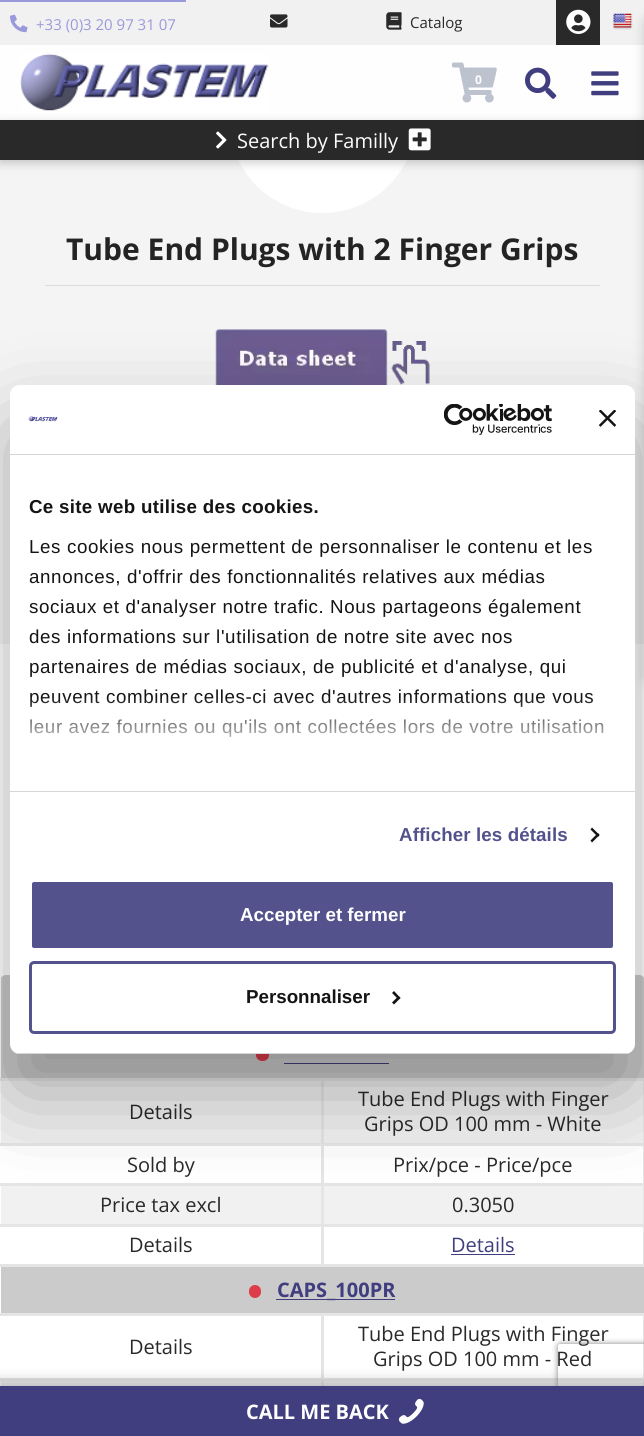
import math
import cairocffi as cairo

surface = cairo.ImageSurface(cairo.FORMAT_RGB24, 644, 1436)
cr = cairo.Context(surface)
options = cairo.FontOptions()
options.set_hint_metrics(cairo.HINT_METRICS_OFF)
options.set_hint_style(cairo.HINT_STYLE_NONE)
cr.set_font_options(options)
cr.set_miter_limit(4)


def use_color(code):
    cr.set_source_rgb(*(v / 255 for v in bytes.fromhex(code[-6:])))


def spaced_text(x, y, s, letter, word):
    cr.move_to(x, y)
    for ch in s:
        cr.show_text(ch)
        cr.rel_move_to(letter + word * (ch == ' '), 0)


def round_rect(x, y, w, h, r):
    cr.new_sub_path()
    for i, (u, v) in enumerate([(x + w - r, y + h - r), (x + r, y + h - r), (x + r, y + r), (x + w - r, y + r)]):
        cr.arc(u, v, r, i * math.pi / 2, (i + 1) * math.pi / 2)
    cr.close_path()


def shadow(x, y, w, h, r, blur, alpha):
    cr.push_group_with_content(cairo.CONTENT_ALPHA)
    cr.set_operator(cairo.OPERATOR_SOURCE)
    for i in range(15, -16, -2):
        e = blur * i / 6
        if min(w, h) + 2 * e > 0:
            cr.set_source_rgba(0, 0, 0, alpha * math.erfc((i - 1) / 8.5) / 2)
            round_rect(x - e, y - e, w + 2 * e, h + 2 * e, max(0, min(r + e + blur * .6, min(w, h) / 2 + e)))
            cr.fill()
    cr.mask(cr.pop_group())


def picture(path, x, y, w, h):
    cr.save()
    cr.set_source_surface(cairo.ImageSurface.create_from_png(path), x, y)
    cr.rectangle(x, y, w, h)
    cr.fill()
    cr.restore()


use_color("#ffffff")
cr.paint()
use_color("#f4f4f4")
cr.new_path()
cr.move_to(-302, 0)
cr.line_to(-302, 644)
cr.line_to(303, 644)
cr.line_to(20, 644)
cr.line_to(20, 0)
cr.close_path()
cr.fill()
cr.new_path()
cr.move_to(343, 644)
cr.line_to(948, 644)
cr.line_to(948, 0)
cr.line_to(625, 0)
cr.line_to(625, 644)
cr.close_path()
cr.fill()
cr.rectangle(20, 160, 605, 225)
cr.fill()
use_color("#ffffff")
round_rect(229, 25, 187, 188, 93.5)
cr.fill()
use_color("#f1f1f1")
cr.rectangle(0, 0, 644, 45)
cr.fill()
use_color("#9a99db")
cr.rectangle(0, 0, 186, 2)
cr.fill()
picture("img1.png", 10, 14, 18, 19)
cr.select_font_face("Open Sans")
cr.set_font_size(15)
cr.move_to(36, 30)
cr.show_text("+33 (0)3 20 97 31 07")
picture("img2.png", 270, 14, 18, 14)
picture("img3.png", 386, 12, 16, 18)
use_color("#292929")
cr.move_to(410, 28)
cr.show_text("Catalog")
cr.rectangle(556, 0, 44, 45)
cr.fill()
picture("img4.png", 566, 9, 25, 25)
picture("img5.png", 613, 13, 20, 17)
use_color("#fefefe")
cr.rectangle(0, 45, 644, 75)
cr.fill()
picture("img6.png", 20, 53, 249, 58)
picture("img7.png", 451, 62, 46, 41)
cr.select_font_face("Open Sans", cairo.FONT_SLANT_NORMAL, cairo.FONT_WEIGHT_BOLD)
cr.set_font_size(12)
cr.move_to(475, 84)
cr.show_text("0")
picture("img8.png", 525, 67, 32, 32)
picture("img9.png", 591, 71, 28, 25)
use_color("#000000")
shadow(0, 123, 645, 40, 0, 5, 0.2)
use_color("#292929")
cr.rectangle(0, 120, 644, 40)
cr.fill()
picture("img10.png", 216, 131, 11, 18)
cr.select_font_face("Open Sans")
cr.set_font_size(20)
use_color("#fefefe")
cr.move_to(237, 148)
cr.show_text("Search by Familly")
picture("img11.png", 408, 128, 23, 23)
cr.select_font_face("Open Sans", cairo.FONT_SLANT_NORMAL, cairo.FONT_WEIGHT_BOLD)
cr.set_font_size(30)
use_color("#232323")
cr.move_to(66, 260)
cr.show_text("Tube End Plugs with 2 Finger Grips")
use_color("#dcdcdc")
cr.rectangle(45, 285, 555, 1)
cr.fill()
picture("img12.png", 215, 329, 215, 56)
cr.save()
round_rect(0, 975, 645, 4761, 6)
cr.clip()
use_color("#cbcbcb")
cr.rectangle(1, 975, 643, 56)
cr.fill()
cr.restore()
use_color("#cbcbcb")
cr.rectangle(1, 1031, 643, 47)
cr.fill()
use_color("#de3b4b")
round_rect(256, 1049, 13, 12, 6)
cr.fill()
use_color("#403e7f")
cr.rectangle(284, 1063, 105, 1)
cr.fill()
use_color("#f1f1f1")
cr.rectangle(1, 1081, 642, 62)
cr.fill()
use_color("#e5e5e5")
cr.rectangle(321, 1078, 323, 3)
cr.fill()
cr.rectangle(321, 1143, 323, 3)
cr.fill()
cr.rectangle(321, 1183, 323, 3)
cr.fill()
use_color("#f1f1f1")
cr.rectangle(1, 1186, 642, 38)
cr.fill()
use_color("#e5e5e5")
cr.rectangle(321, 1224, 323, 3)
cr.fill()
cr.rectangle(643, 1224, 1, 42)
cr.fill()
cr.rectangle(321, 1264, 323, 3)
cr.fill()
cr.rectangle(321, 1224, 3, 42)
cr.fill()
cr.rectangle(0, 1224, 324, 3)
cr.fill()
cr.rectangle(321, 1183, 3, 43)
cr.fill()
cr.rectangle(0, 1183, 324, 3)
cr.fill()
cr.rectangle(321, 1143, 3, 42)
cr.fill()
cr.rectangle(0, 1143, 324, 3)
cr.fill()
cr.rectangle(321, 1078, 3, 67)
cr.fill()
cr.rectangle(0, 1078, 324, 3)
cr.fill()
cr.select_font_face("Open Sans")
cr.set_font_size(20)
use_color("#292929")
cr.move_to(129, 1119)
cr.show_text("Details")
use_color("#e5e5e5")
cr.rectangle(643, 1183, 1, 43)
cr.fill()
cr.rectangle(643, 1143, 1, 42)
cr.fill()
cr.rectangle(643, 1078, 1, 67)
cr.fill()
use_color("#292929")
cr.move_to(358, 1106)
cr.show_text("Tube End Plugs with Finger")
cr.move_to(364, 1131)
cr.show_text("Grips OD 100 mm - White")
cr.move_to(127, 1172)
cr.show_text("Sold by")
cr.move_to(393, 1172)
cr.show_text("Prix/pce - Price/pce")
cr.move_to(100, 1212)
cr.show_text("Price tax excl")
cr.move_to(452, 1212)
cr.show_text("0.3050")
use_color("#e5e5e5")
cr.rectangle(0, 1264, 324, 3)
cr.fill()
use_color("#292929")
cr.move_to(129, 1252)
cr.show_text("Details")
use_color("#403e7f")
cr.move_to(451, 1252)
cr.show_text("Details")
cr.rectangle(451, 1254, 64, 1)
cr.fill()
use_color("#cbcbcb")
cr.rectangle(1, 1267, 643, 46)
cr.fill()
use_color("#de3b4b")
round_rect(249, 1285, 12, 13, 6)
cr.fill()
use_color("#403e7f")
cr.rectangle(276, 1299, 119, 1)
cr.fill()
cr.select_font_face("Open Sans", cairo.FONT_SLANT_NORMAL, cairo.FONT_WEIGHT_BOLD)
cr.move_to(277, 1297)
cr.show_text("CAPS_100PR")
use_color("#e5e5e5")
cr.rectangle(321, 1313, 323, 3)
cr.fill()
cr.rectangle(321, 1378, 323, 3)
cr.fill()
use_color("#f1f1f1")
cr.rectangle(1, 1381, 642, 5)
cr.fill()
use_color("#e5e5e5")
cr.rectangle(321, 1378, 3, 8)
cr.fill()
cr.rectangle(0, 1378, 324, 3)
cr.fill()
cr.rectangle(321, 1313, 3, 67)
cr.fill()
cr.rectangle(0, 1313, 324, 3)
cr.fill()
cr.select_font_face("Open Sans")
use_color("#292929")
cr.move_to(129, 1354)
cr.show_text("Details")
use_color("#e5e5e5")
cr.rectangle(643, 1378, 1, 8)
cr.fill()
cr.rectangle(643, 1313, 1, 67)
cr.fill()
use_color("#292929")
cr.move_to(358, 1341)
cr.show_text("Tube End Plugs with Finger")
cr.move_to(373, 1366)
cr.show_text("Grips OD 100 mm - Red")
use_color("#000000")
shadow(10, 425, 625, 669, 10, 42.5, 0.3)
shadow(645, 15, 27, 670, 10, 6, 0.2)
use_color("#ffffff")
round_rect(10, 385, 625, 669, 10)
cr.fill()
use_color("#d6d6d6")
cr.rectangle(10, 454, 625, 1)
cr.fill()
picture("img13.png", 28, 416, 30, 6)
picture("img14.png", 444, 404, 108, 31)
picture("img15.png", 599, 410, 17, 17)
cr.rectangle(10, 791, 625, 1)
cr.fill()
cr.select_font_face("Liberation Sans", cairo.FONT_SLANT_NORMAL, cairo.FONT_WEIGHT_BOLD)
cr.set_font_size(18.75)
use_color("#141414")
spaced_text(29, 513, "Ce site web utilise des cookies.", 0.3, 0)
cr.select_font_face("Liberation Sans")
spaced_text(29, 553, "Les cookies nous permettent de personnaliser le contenu et les", 0.62, 0)
spaced_text(29, 583, "annonces, d'offrir des fonctionnalités relatives aux médias", 0.62, 0)
spaced_text(29, 613, "sociaux et d'analyser notre trafic. Nous partageons également", 0.62, 0)
spaced_text(29, 643, "des informations sur l'utilisation de notre site avec nos", 0.62, 0)
spaced_text(29, 673, "partenaires de médias sociaux, de publicité et d'analyse, qui", 0.62, 0)
spaced_text(29, 703, "peuvent combiner celles-ci avec d'autres informations que vous", 0.62, 0)
spaced_text(29, 733, "leur avez fournies ou qu'ils ont collectées lors de votre utilisation", 0.62, 0)
gradient = cairo.LinearGradient(314, 791, 314, 697)
gradient.add_color_stop_rgba(0, 1, 1, 1, 1)
gradient.add_color_stop_rgba(0.5, 1, 1, 1, 0.8)
gradient.add_color_stop_rgba(1, 1, 1, 1, 0)
cr.set_source(gradient)
cr.rectangle(30, 698, 574, 39)
cr.fill()
cr.select_font_face("Liberation Sans", cairo.FONT_SLANT_NORMAL, cairo.FONT_WEIGHT_BOLD)
use_color("#53528c")
spaced_text(399, 841, "Afficher les détails", 0.1, 0)
use_color("#141414")
cr.new_path()
cr.move_to(592, 827.5)
cr.line_to(599.5, 835)
cr.line_to(598, 837)
cr.line_to(590.5, 829.5)
cr.close_path()
cr.fill()
cr.new_path()
cr.move_to(598, 833)
cr.line_to(599.5, 835)
cr.line_to(592, 842.5)
cr.line_to(590.5, 840.5)
cr.close_path()
cr.fill()
cr.save()
round_rect(10, 385, 625, 669, 10)
cr.clip()
use_color("#d6d6d6")
cr.rectangle(10, 1053, 625, 1)
cr.fill()
cr.restore()
use_color("#53528c")
round_rect(30.5, 880.5, 584, 69, 3.5)
cr.fill_preserve()
use_color("#ffffff")
cr.set_line_width(3)
cr.stroke()
use_color("#fefefe")
cr.move_to(240, 921)
cr.show_text("Accepter et fermer")
round_rect(30.5, 962.5, 584, 70, 3.5)
use_color("#53528c")
cr.stroke()
use_color("#141414")
cr.move_to(246, 1003)
cr.show_text("Personnaliser")
cr.new_path()
cr.move_to(394, 991)
cr.line_to(400.5, 998)
cr.line_to(398.5, 999.5)
cr.line_to(392, 993)
cr.close_path()
cr.fill()
cr.new_path()
cr.move_to(398.5, 996)
cr.line_to(400.5, 998)
cr.line_to(394, 1004.5)
cr.line_to(392, 1002.5)
cr.close_path()
cr.fill()
use_color("#000000")
shadow(-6, 1380, 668, 50, 0, 6, 0.2)
cr.save()
cr.set_fill_rule(cairo.FILL_RULE_EVEN_ODD)
cr.new_path()
cr.move_to(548, 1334)
cr.line_to(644, 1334)
cr.line_to(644, 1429)
cr.line_to(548, 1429)
cr.close_path()
cr.move_to(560.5, 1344)
cr.line_to(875.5, 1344)
cr.curve_to(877, 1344, 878, 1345, 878, 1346.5)
cr.line_to(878, 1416.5)
cr.curve_to(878, 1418, 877, 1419, 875.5, 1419)
cr.line_to(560.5, 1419)
cr.curve_to(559, 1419, 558, 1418, 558, 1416.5)
cr.line_to(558, 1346.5)
cr.curve_to(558, 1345, 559, 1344, 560.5, 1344)
cr.close_path()
cr.clip()
use_color("#808080")
shadow(558, 1344, 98, 75, 2.5, 3, 1)
cr.restore()
use_color("#403e7f")
cr.rectangle(0, 1386, 644, 50)
cr.fill()
cr.select_font_face("Open Sans", cairo.FONT_SLANT_NORMAL, cairo.FONT_WEIGHT_BOLD)
cr.set_font_size(20)
use_color("#fefefe")
cr.move_to(246, 1419)
cr.show_text("CALL ME BACK")
picture("img16.png", 399, 1399, 25, 25)
surface.write_to_png("result.png")
